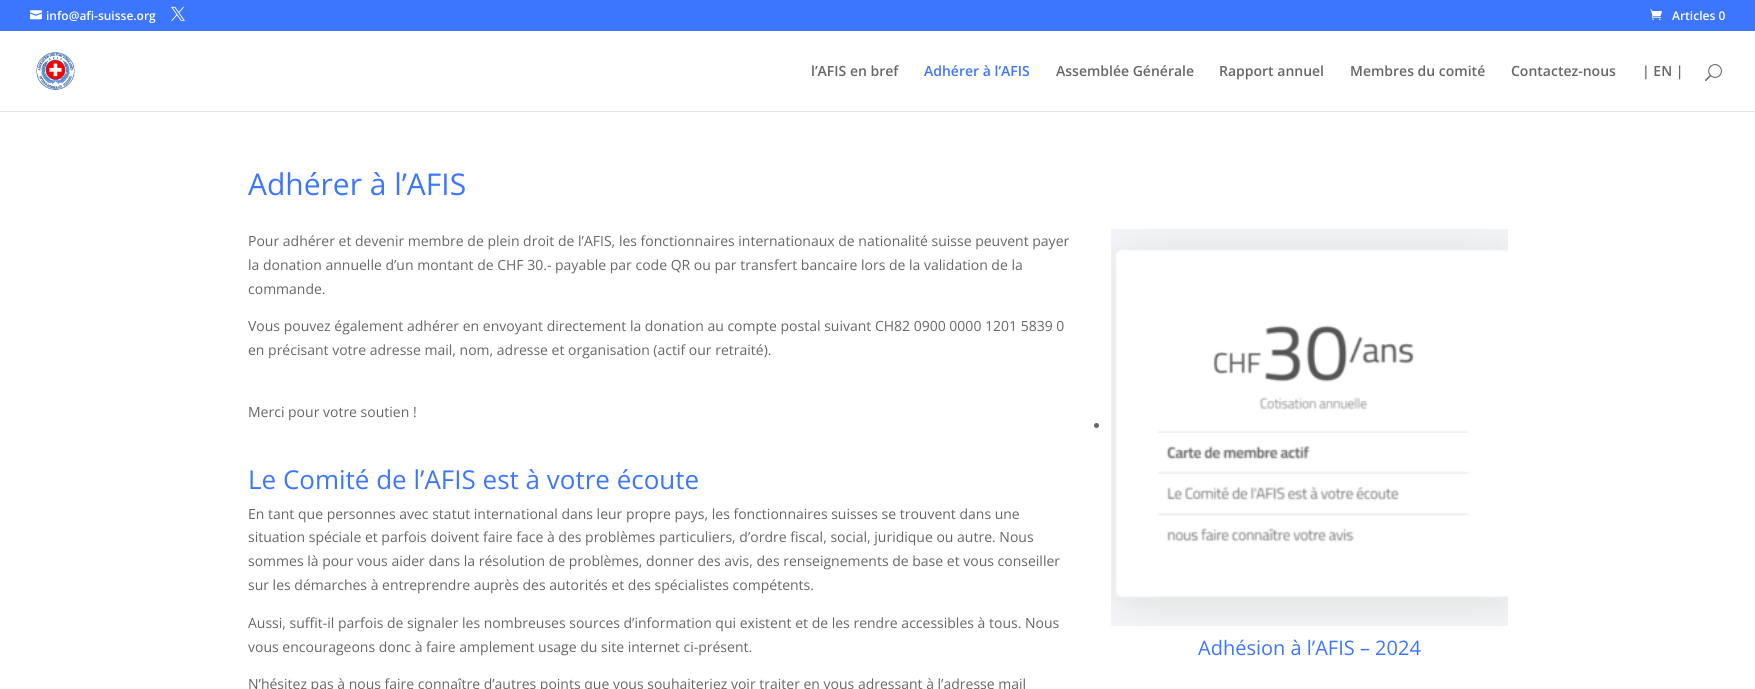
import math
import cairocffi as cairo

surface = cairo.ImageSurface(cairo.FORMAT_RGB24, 1755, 689)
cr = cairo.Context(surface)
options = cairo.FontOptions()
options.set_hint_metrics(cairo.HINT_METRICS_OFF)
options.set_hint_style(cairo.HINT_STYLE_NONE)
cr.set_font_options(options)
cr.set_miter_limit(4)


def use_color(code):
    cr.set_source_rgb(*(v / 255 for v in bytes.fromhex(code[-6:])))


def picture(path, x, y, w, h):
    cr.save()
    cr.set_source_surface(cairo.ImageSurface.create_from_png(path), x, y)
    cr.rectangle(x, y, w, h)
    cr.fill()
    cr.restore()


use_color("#3c76fe")
cr.paint()
picture("img1.png", 30, 10, 12, 10)
cr.select_font_face("Open Sans SemiBold")
cr.set_font_size(12)
use_color("#ffffff")
cr.move_to(46, 20)
cr.show_text("info@afi-suisse.org")
picture("img2.png", 171, 6, 14, 15)
picture("img3.png", 1650, 9, 12, 11)
cr.move_to(1672, 20)
cr.show_text("Articles 0")
use_color("#e6e6e6")
cr.rectangle(0, 111, 1755, 1)
cr.fill()
use_color("#ffffff")
cr.rectangle(0, 31, 1755, 80)
cr.fill()
picture("img4.png", 36, 52, 39, 38)
cr.set_font_size(14)
use_color("#666666")
cr.move_to(811, 76)
cr.show_text("l’AFIS en bref")
use_color("#3c76fe")
cr.move_to(924, 76)
cr.show_text("Adhérer à l’AFIS")
use_color("#666666")
cr.move_to(1056, 76)
cr.show_text("Assemblée Générale")
cr.move_to(1219, 76)
cr.show_text("Rapport annuel")
cr.move_to(1350, 76)
cr.show_text("Membres du comité")
cr.move_to(1511, 76)
cr.show_text("Contactez-nous")
cr.move_to(1642, 76)
cr.show_text("| EN |")
picture("img5.png", 1705, 64, 17, 18)
use_color("#ffffff")
cr.rectangle(0, 112, 1755, 577)
cr.fill()
cr.select_font_face("Open Sans")
cr.set_font_size(30)
use_color("#3c76fe")
cr.move_to(248, 195)
cr.show_text("Adhérer à l’AFIS")
cr.set_font_size(14)
use_color("#666666")
cr.move_to(248, 246)
cr.show_text("Pour adhérer et devenir membre de plein droit de l’AFIS, les fonctionnaires internationaux de nationalité suisse peuvent payer")
cr.move_to(248, 270)
cr.show_text("la donation annuelle d’un montant de CHF 30.- payable par code QR ou par transfert bancaire lors de la validation de la")
cr.move_to(248, 294)
cr.show_text("commande.")
cr.move_to(248, 331)
cr.show_text("Vous pouvez également adhérer en envoyant directement la donation au compte postal suivant CH82 0900 0000 1201 5839 0")
cr.move_to(248, 355)
cr.show_text("en précisant votre adresse mail, nom, adresse et organisation (actif our retraité).")
cr.move_to(248, 417)
cr.show_text("Merci pour votre soutien !")
cr.set_font_size(26)
use_color("#3c76fe")
cr.move_to(248, 489)
cr.show_text("Le Comité de l’AFIS est à votre écoute")
cr.set_font_size(14)
use_color("#666666")
cr.move_to(248, 519)
cr.show_text("En tant que personnes avec statut international dans leur propre pays, les fonctionnaires suisses se trouvent dans une")
cr.move_to(248, 542)
cr.show_text("situation spéciale et parfois doivent faire face à des problèmes particuliers, d’ordre fiscal, social, juridique ou autre. Nous")
cr.move_to(248, 566)
cr.show_text("sommes là pour vous aider dans la résolution de problèmes, donner des avis, des renseignements de base et vous conseiller")
cr.move_to(248, 590)
cr.show_text("sur les démarches à entreprendre auprès des autorités et des spécialistes compétents.")
cr.move_to(248, 628)
cr.show_text("Aussi, suffit-il parfois de signaler les nombreuses sources d’information qui existent et de les rendre accessibles à tous. Nous")
cr.move_to(248, 652)
cr.show_text("vous encourageons donc à faire amplement usage du site internet ci-présent.")
cr.move_to(248, 689)
cr.show_text("N’hésitez pas à nous faire connaître d’autres points que vous souhaiteriez voir traiter en vous adressant à l’adresse mail")
cr.new_path()
cr.arc(1096.5, 425.5, 2.5, 0, 2 * math.pi)
cr.fill()
picture("img6.png", 1111, 229, 397, 397)
cr.set_font_size(20)
use_color("#3c76fe")
cr.move_to(1198, 655)
cr.show_text("Adhésion à l’AFIS – 2024")
surface.write_to_png("result.png")
